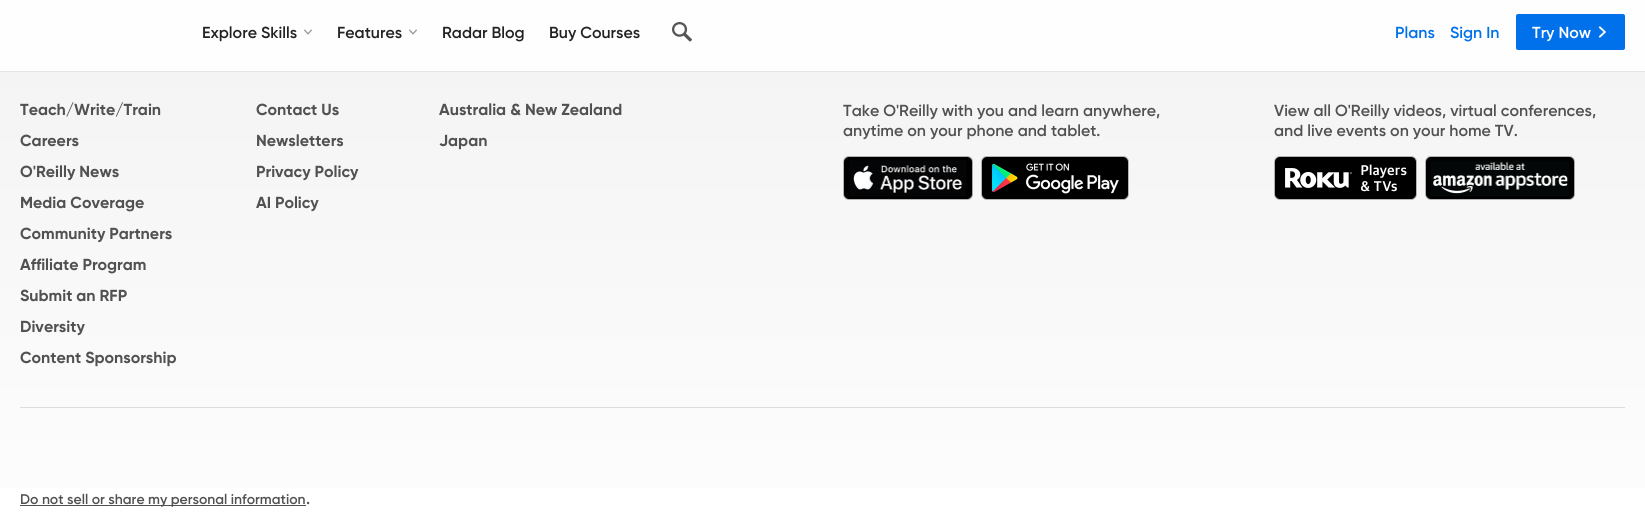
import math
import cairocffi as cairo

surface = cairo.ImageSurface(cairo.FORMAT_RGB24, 1645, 528)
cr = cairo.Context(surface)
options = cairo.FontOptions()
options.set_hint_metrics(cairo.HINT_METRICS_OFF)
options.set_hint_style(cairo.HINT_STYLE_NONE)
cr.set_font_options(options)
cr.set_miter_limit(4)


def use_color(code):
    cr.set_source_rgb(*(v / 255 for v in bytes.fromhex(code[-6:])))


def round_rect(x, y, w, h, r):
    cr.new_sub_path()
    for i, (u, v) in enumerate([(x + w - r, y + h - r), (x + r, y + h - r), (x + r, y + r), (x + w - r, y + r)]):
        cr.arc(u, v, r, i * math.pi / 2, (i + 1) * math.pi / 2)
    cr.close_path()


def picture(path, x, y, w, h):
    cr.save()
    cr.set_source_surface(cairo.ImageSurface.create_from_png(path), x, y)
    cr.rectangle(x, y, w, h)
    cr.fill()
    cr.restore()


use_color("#ffffff")
cr.paint()
gradient = cairo.LinearGradient(823, -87, 823, 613)
gradient.add_color_stop_rgba(0, 0.945, 0.945, 0.945, 1)
gradient.add_color_stop_rgba(1, 1, 1, 1, 1)
cr.set_source(gradient)
cr.rectangle(0, 0, 1645, 488)
cr.fill()
use_color("#dddddd")
cr.rectangle(20, 13, 1605, 1)
cr.fill()
cr.set_source_rgba(1, 1, 1, 0.95)
cr.rectangle(0, 0, 1645, 72)
cr.fill()
cr.set_source_rgba(0, 0, 0, 0.1)
cr.rectangle(0, 71, 1645, 1)
cr.fill()
cr.select_font_face("Gilroy SemiBold")
cr.set_font_size(16)
use_color("#222222")
cr.move_to(202, 38)
cr.show_text("Explore Skills")
picture("img1.png", 304, 29, 8, 6)
cr.move_to(337, 38)
cr.show_text("Features")
picture("img1.png", 409, 29, 8, 6)
cr.move_to(442, 38)
cr.show_text("Radar Blog")
cr.move_to(549, 38)
cr.show_text("Buy Courses")
picture("img2.png", 672, 22, 20, 20)
use_color("#0071eb")
cr.move_to(1395, 38)
cr.show_text("Plans")
cr.move_to(1450, 38)
cr.show_text("Sign In")
round_rect(1516, 14, 109, 36, 2)
cr.fill()
use_color("#ffffff")
cr.move_to(1532, 38)
cr.show_text("Try Now")
picture("img3.png", 1598, 26, 8, 12)
use_color("#dddddd")
cr.rectangle(20, 407, 1605, 1)
cr.fill()
cr.select_font_face("Gilroy", cairo.FONT_SLANT_NORMAL, cairo.FONT_WEIGHT_BOLD)
use_color("#515151")
cr.move_to(20, 115)
cr.show_text("Teach/Write/Train")
cr.move_to(20, 146)
cr.show_text("Careers")
cr.move_to(20, 177)
cr.show_text("O'Reilly News")
cr.move_to(20, 208)
cr.show_text("Media Coverage")
cr.move_to(20, 239)
cr.show_text("Community Partners")
cr.move_to(20, 270)
cr.show_text("Affiliate Program")
cr.move_to(20, 301)
cr.show_text("Submit an RFP")
cr.move_to(20, 332)
cr.show_text("Diversity")
cr.move_to(20, 363)
cr.show_text("Content Sponsorship")
cr.move_to(256, 115)
cr.show_text("Contact Us")
cr.move_to(256, 146)
cr.show_text("Newsletters")
cr.move_to(256, 177)
cr.show_text("Privacy Policy")
cr.move_to(256, 208)
cr.show_text("AI Policy")
cr.move_to(439, 115)
cr.show_text("Australia & New Zealand")
cr.move_to(439, 146)
cr.show_text("Japan")
cr.select_font_face("Gilroy SemiBold")
cr.move_to(843, 116)
cr.show_text("Take O'Reilly with you and learn anywhere,")
cr.move_to(843, 136)
cr.show_text("anytime on your phone and tablet.")
picture("img4.png", 843, 156, 130, 44)
picture("img5.png", 981, 156, 148, 44)
cr.move_to(1274, 116)
cr.show_text("View all O'Reilly videos, virtual conferences,")
cr.move_to(1274, 136)
cr.show_text("and live events on your home TV.")
picture("img6.png", 1274, 156, 143, 44)
picture("img7.png", 1425, 156, 150, 44)
cr.rectangle(20, 505, 286, 1)
cr.fill()
cr.set_font_size(14)
cr.move_to(20, 504)
cr.show_text("Do not sell or share my personal information")
cr.set_font_size(16)
cr.move_to(306, 504)
cr.show_text(".")
surface.write_to_png("result.png")
